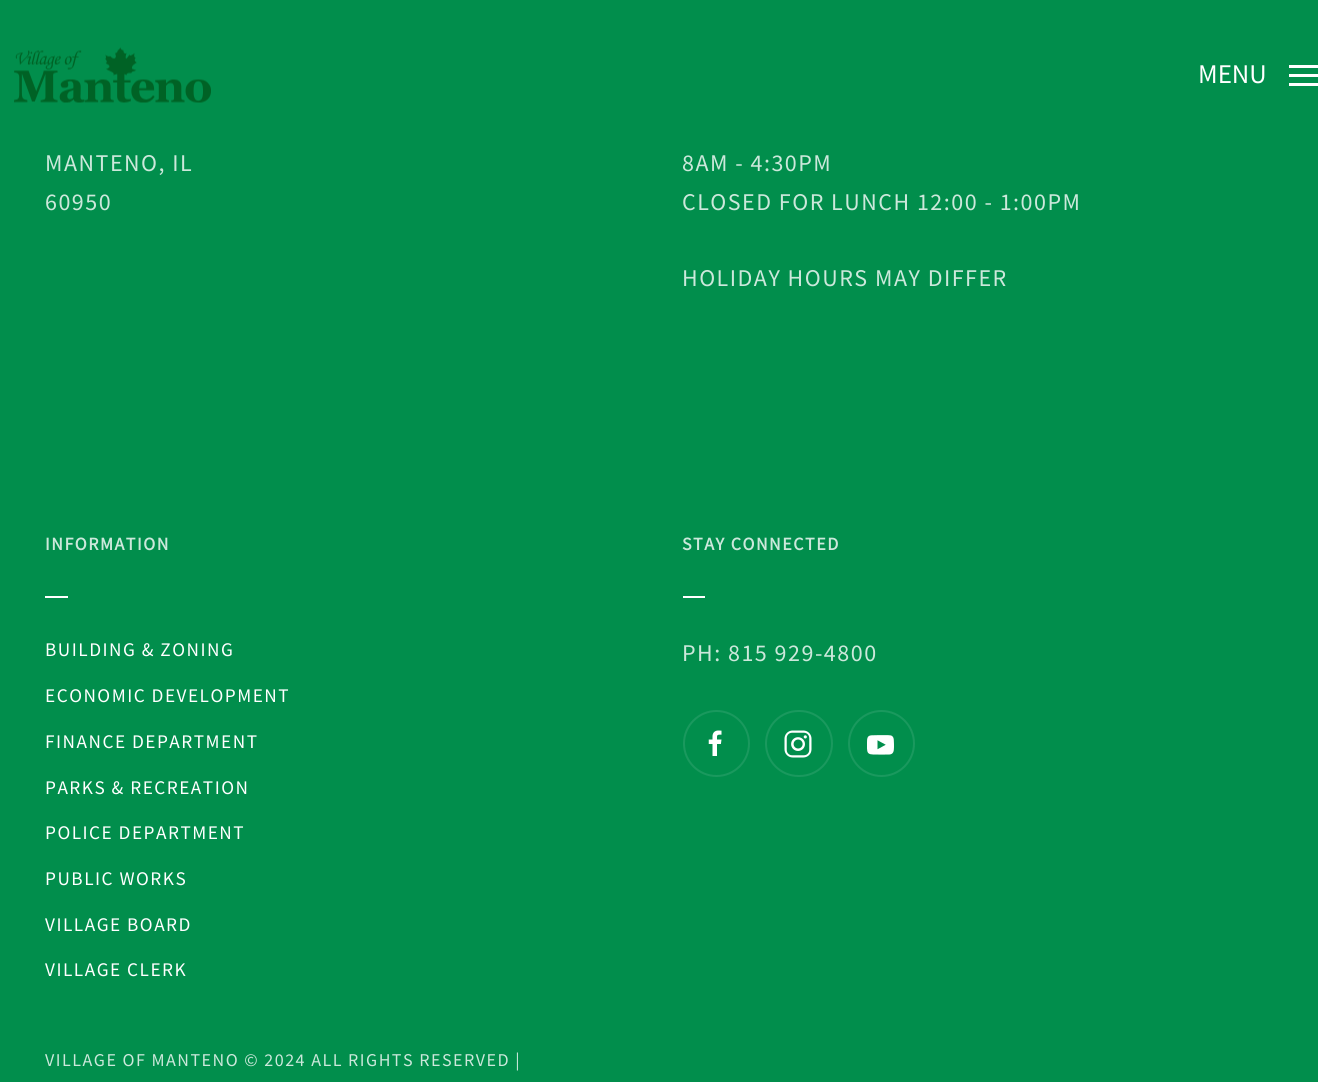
import math
import cairocffi as cairo

surface = cairo.ImageSurface(cairo.FORMAT_RGB24, 1318, 1082)
cr = cairo.Context(surface)
options = cairo.FontOptions()
options.set_hint_metrics(cairo.HINT_METRICS_OFF)
options.set_hint_style(cairo.HINT_STYLE_NONE)
cr.set_font_options(options)
cr.set_miter_limit(4)


def use_color(code):
    cr.set_source_rgb(*(v / 255 for v in bytes.fromhex(code[-6:])))


def spaced_text(x, y, s, letter, word):
    cr.move_to(x, y)
    for ch in s:
        cr.show_text(ch)
        cr.rel_move_to(letter + word * (ch == ' '), 0)


def round_rect(x, y, w, h, r):
    cr.new_sub_path()
    for i, (u, v) in enumerate([(x + w - r, y + h - r), (x + r, y + h - r), (x + r, y + r), (x + w - r, y + r)]):
        cr.arc(u, v, r, i * math.pi / 2, (i + 1) * math.pi / 2)
    cr.close_path()


def picture(path, x, y, w, h):
    cr.save()
    cr.set_source_surface(cairo.ImageSurface.create_from_png(path), x, y)
    cr.rectangle(x, y, w, h)
    cr.fill()
    cr.restore()


use_color("#018e4c")
cr.paint()
picture("img1.png", 14, 47, 197, 56)
cr.select_font_face("Source Sans Pro")
cr.set_font_size(27)
use_color("#ffffff")
cr.move_to(1198, 83)
cr.show_text("MENU")
cr.rectangle(1289, 65, 29, 3)
cr.fill()
cr.rectangle(1289, 74, 29, 3)
cr.fill()
cr.rectangle(1289, 83, 29, 3)
cr.fill()
cr.set_font_size(24)
use_color("#cce8db")
spaced_text(45, 171, "MANTENO, IL", 1.5, 0)
spaced_text(45, 210, "60950", 1.5, 0)
spaced_text(682, 171, "8AM - 4:30PM", 1.5, 0)
spaced_text(682, 210, "CLOSED FOR LUNCH 12:00 - 1:00PM", 1.5, 0)
spaced_text(682, 286, "HOLIDAY HOURS MAY DIFFER", 1.5, 0)
cr.select_font_face("Source Sans Pro", cairo.FONT_SLANT_NORMAL, cairo.FONT_WEIGHT_BOLD)
cr.set_font_size(18)
spaced_text(45, 550, "INFORMATION", 1.5, 0)
use_color("#ffffff")
cr.rectangle(45, 596, 23, 2)
cr.fill()
cr.select_font_face("Source Sans Pro")
cr.set_font_size(19.25)
spaced_text(45, 656, "BUILDING & ZONING", 1.5, 0)
spaced_text(45, 702, "ECONOMIC DEVELOPMENT", 1.5, 0)
spaced_text(45, 748, "FINANCE DEPARTMENT", 1.5, 0)
spaced_text(45, 794, "PARKS & RECREATION", 1.5, 0)
spaced_text(45, 839, "POLICE DEPARTMENT", 1.5, 0)
spaced_text(45, 885, "PUBLIC WORKS", 1.5, 0)
spaced_text(45, 931, "VILLAGE BOARD", 1.5, 0)
spaced_text(45, 976, "VILLAGE CLERK", 1.5, 0)
cr.select_font_face("Source Sans Pro", cairo.FONT_SLANT_NORMAL, cairo.FONT_WEIGHT_BOLD)
cr.set_font_size(18)
use_color("#cce8db")
spaced_text(682, 550, "STAY CONNECTED", 1.5, 0)
use_color("#ffffff")
cr.rectangle(683, 596, 22, 2)
cr.fill()
cr.select_font_face("Source Sans Pro")
cr.set_font_size(24)
use_color("#cce8db")
spaced_text(682, 661, "PH: 815 929-4800", 1.5, 0)
cr.new_path()
cr.arc(716.5, 743.5, 32.5, 0, 2 * math.pi)
use_color("#1a995e")
cr.stroke()
picture("img2.png", 708, 730, 14, 26)
round_rect(766, 711, 66, 65, 32.5)
cr.stroke()
picture("img3.png", 784, 730, 28, 28)
cr.arc(881.5, 743.5, 32.5, 0, 2 * math.pi)
cr.stroke()
picture("img4.png", 867, 735, 27, 20)
cr.set_font_size(18)
use_color("#cce8db")
spaced_text(45, 1066, "VILLAGE OF MANTENO © 2024 ALL RIGHTS RESERVED |", 1.5, 0)
surface.write_to_png("result.png")
